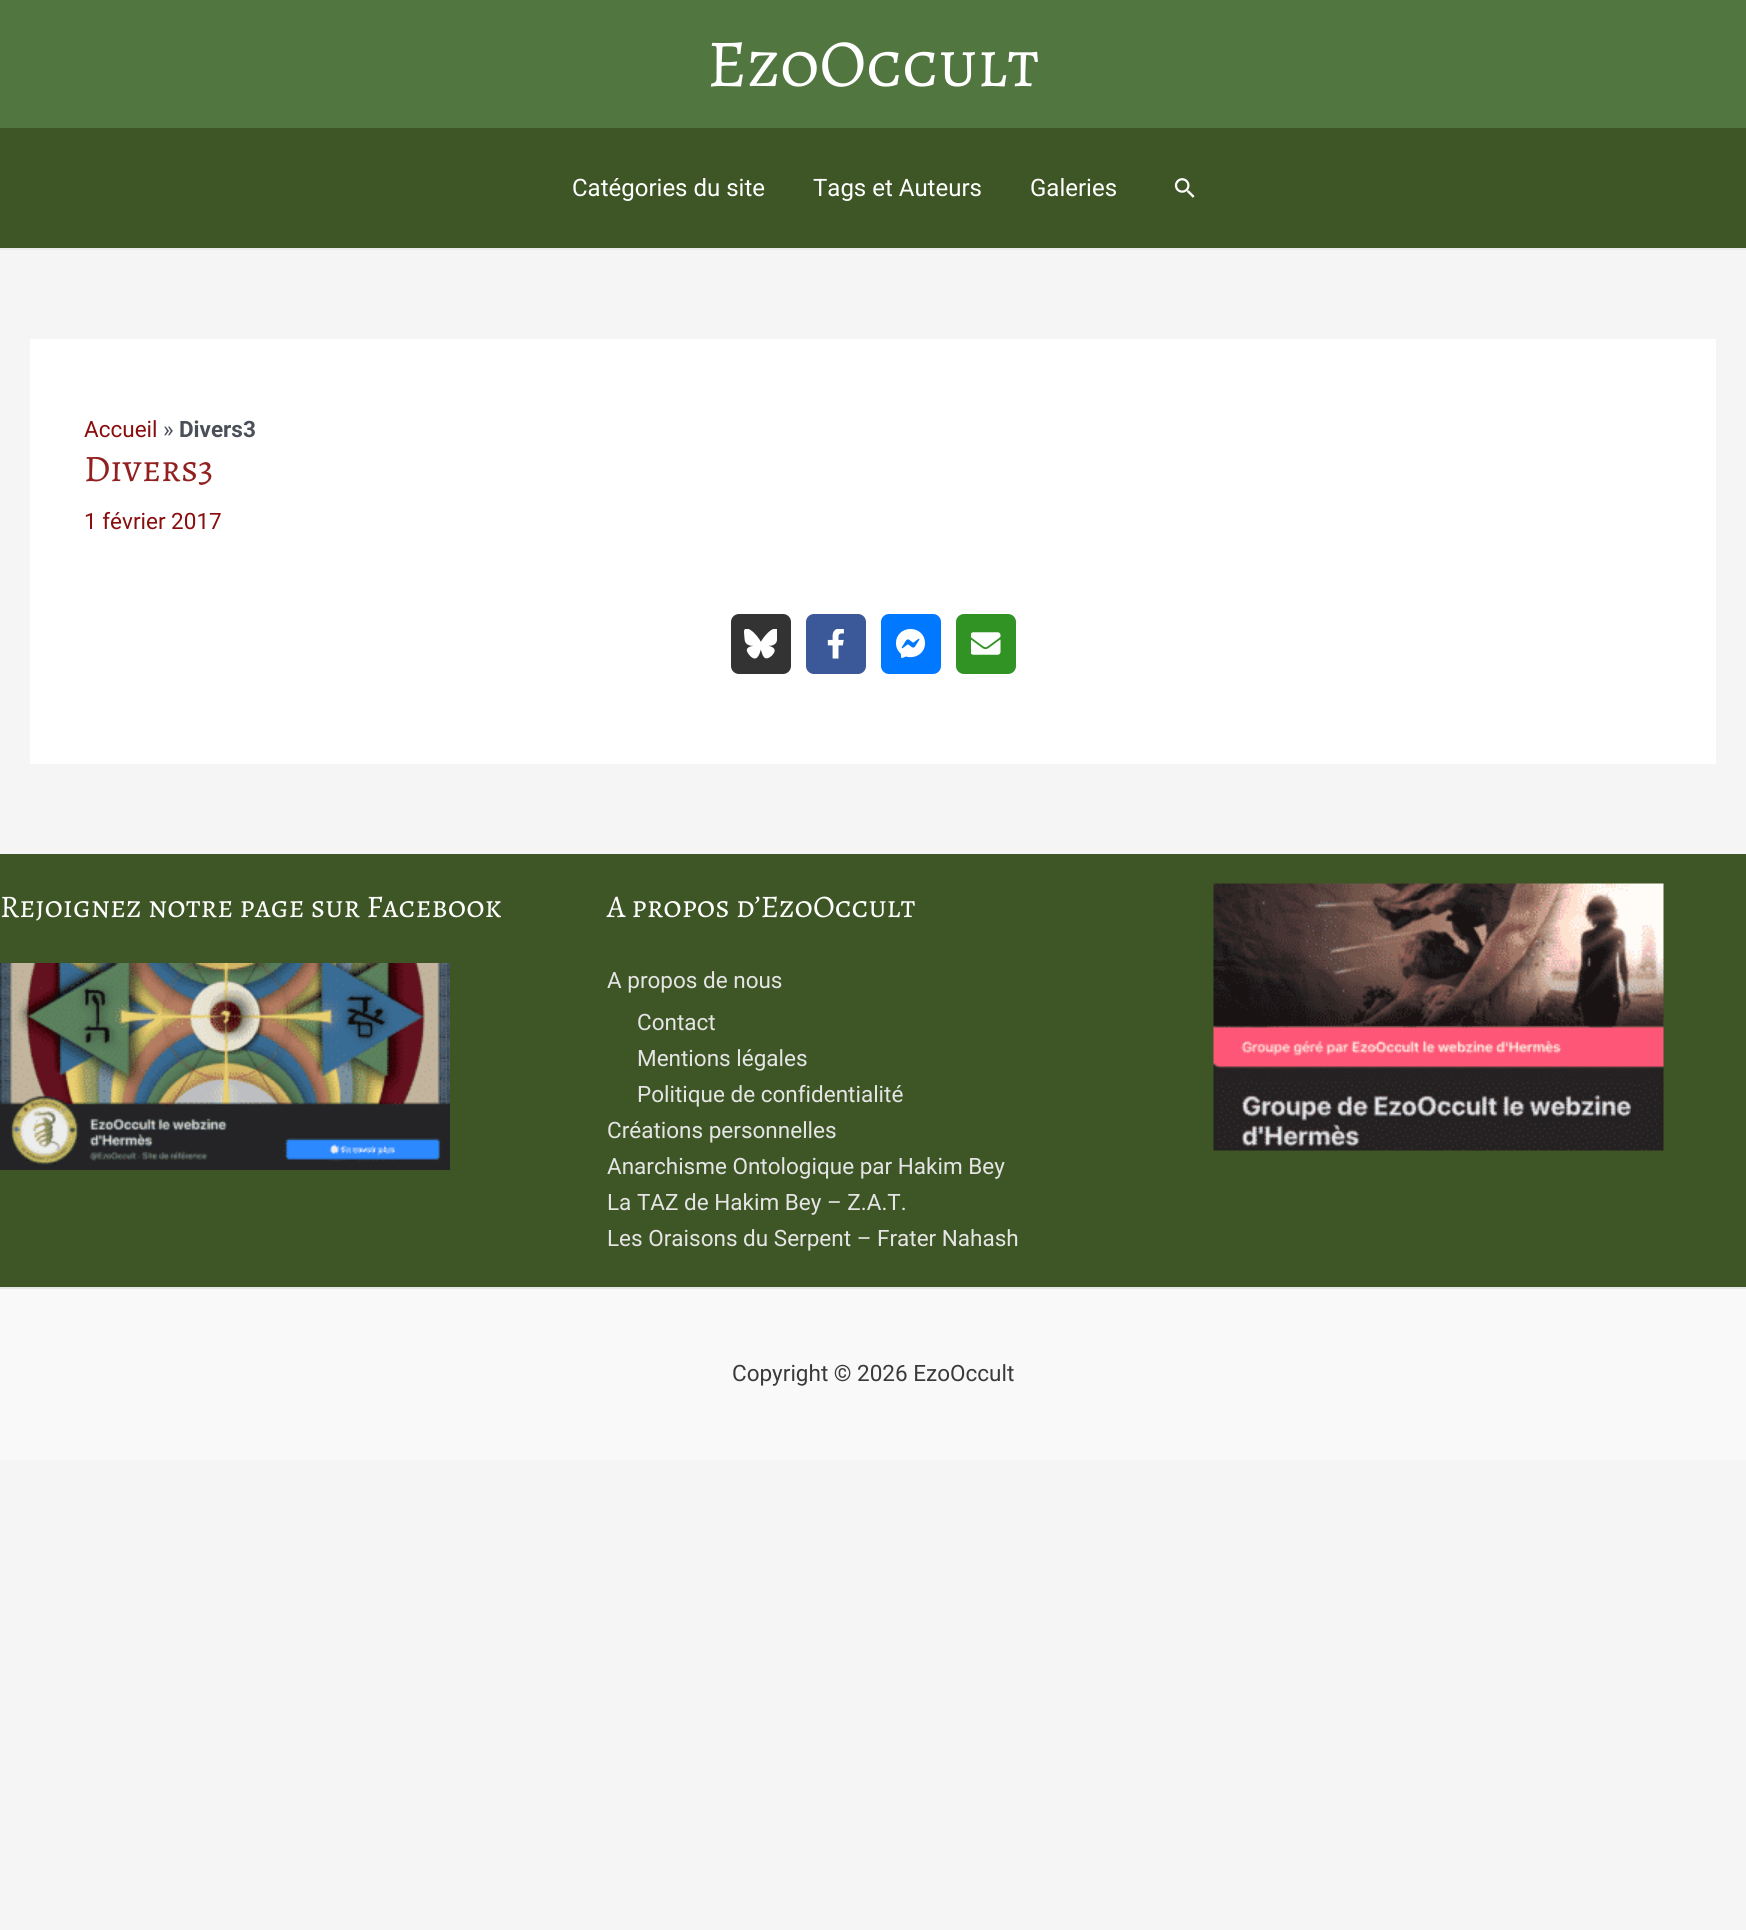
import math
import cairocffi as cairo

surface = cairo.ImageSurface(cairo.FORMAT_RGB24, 1746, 1930)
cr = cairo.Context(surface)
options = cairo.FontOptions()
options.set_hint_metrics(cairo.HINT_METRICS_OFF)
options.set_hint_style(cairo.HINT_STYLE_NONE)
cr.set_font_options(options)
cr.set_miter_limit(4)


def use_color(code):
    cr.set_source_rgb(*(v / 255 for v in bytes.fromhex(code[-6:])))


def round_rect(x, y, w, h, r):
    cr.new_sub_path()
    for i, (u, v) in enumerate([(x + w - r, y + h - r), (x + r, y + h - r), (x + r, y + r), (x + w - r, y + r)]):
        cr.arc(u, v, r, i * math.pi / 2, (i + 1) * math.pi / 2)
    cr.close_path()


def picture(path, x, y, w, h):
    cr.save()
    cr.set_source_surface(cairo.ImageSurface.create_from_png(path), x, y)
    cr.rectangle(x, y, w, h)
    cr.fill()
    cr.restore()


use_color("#f5f5f5")
cr.paint()
use_color("#527640")
cr.rectangle(0, 0, 1746, 128)
cr.fill()
cr.select_font_face("Alegreya SC")
cr.set_font_size(67.5)
use_color("#ffffff")
cr.move_to(707, 86)
cr.show_text("EzoOccult")
use_color("#3e5625")
cr.rectangle(0, 128, 1746, 120)
cr.fill()
use_color("#eaeaea")
cr.rectangle(0, 248, 1746, 2)
cr.fill()
cr.select_font_face("Roboto")
cr.set_font_size(24)
use_color("#ffffff")
cr.move_to(572, 196)
cr.show_text("Catégories du site")
cr.move_to(813, 196)
cr.show_text("Tags et Auteurs")
cr.move_to(1030, 196)
cr.show_text("Galeries")
picture("img1.png", 1174, 178, 21, 20)
cr.rectangle(30, 339, 1686, 425)
cr.fill()
cr.set_font_size(22.5)
use_color("#890d0d")
cr.move_to(84, 437)
cr.show_text("Accueil")
use_color("#4b4f58")
cr.move_to(163, 437)
cr.show_text("»")
cr.select_font_face("Roboto", cairo.FONT_SLANT_NORMAL, cairo.FONT_WEIGHT_BOLD)
cr.move_to(179, 437)
cr.show_text("Divers3")
cr.select_font_face("Alegreya SC")
cr.set_font_size(37.5)
use_color("#932020")
cr.move_to(84, 481)
cr.show_text("Divers3")
cr.select_font_face("Roboto")
cr.set_font_size(22.5)
use_color("#890d0d")
cr.move_to(84, 529)
cr.show_text("1 février 2017")
use_color("#333333")
round_rect(731, 614, 60, 60, 8)
cr.fill()
picture("img2.png", 744, 629, 33, 30)
use_color("#3b5998")
round_rect(806, 614, 60, 60, 8)
cr.fill()
picture("img3.png", 827, 629, 17, 30)
use_color("#0078ff")
round_rect(881, 614, 60, 60, 8)
cr.fill()
picture("img4.png", 896, 629, 29, 29)
use_color("#319324")
round_rect(956, 614, 60, 60, 8)
cr.fill()
picture("img5.png", 971, 632, 30, 23)
use_color("#3e5625")
cr.rectangle(0, 854, 1746, 433)
cr.fill()
cr.select_font_face("Alegreya SC")
cr.set_font_size(31.5)
use_color("#ffffff")
cr.move_to(0, 917)
cr.show_text("Rejoignez notre page sur Facebook")
picture("img6.png", 0, 963, 450, 207)
cr.move_to(607, 917)
cr.show_text("A propos d’EzoOccult")
cr.select_font_face("Roboto")
cr.set_font_size(22.5)
use_color("#e5e5e5")
cr.move_to(607, 988)
cr.show_text("A propos de nous")
cr.move_to(637, 1030)
cr.show_text("Contact")
cr.move_to(637, 1066)
cr.show_text("Mentions légales")
cr.move_to(637, 1102)
cr.show_text("Politique de confidentialité")
cr.move_to(607, 1138)
cr.show_text("Créations personnelles")
cr.move_to(607, 1174)
cr.show_text("Anarchisme Ontologique par Hakim Bey")
cr.move_to(607, 1210)
cr.show_text("La TAZ de Hakim Bey – Z.A.T.")
cr.move_to(607, 1246)
cr.show_text("Les Oraisons du Serpent – Frater Nahash")
picture("img7.png", 1213, 883, 451, 268)
use_color("#f9f9f9")
cr.rectangle(0, 1289, 1746, 171)
cr.fill()
use_color("#e6e6e6")
cr.rectangle(0, 1287, 1746, 2)
cr.fill()
use_color("#3a3a3a")
cr.move_to(732, 1381)
cr.show_text("Copyright © 2026 EzoOccult")
surface.write_to_png("result.png")
